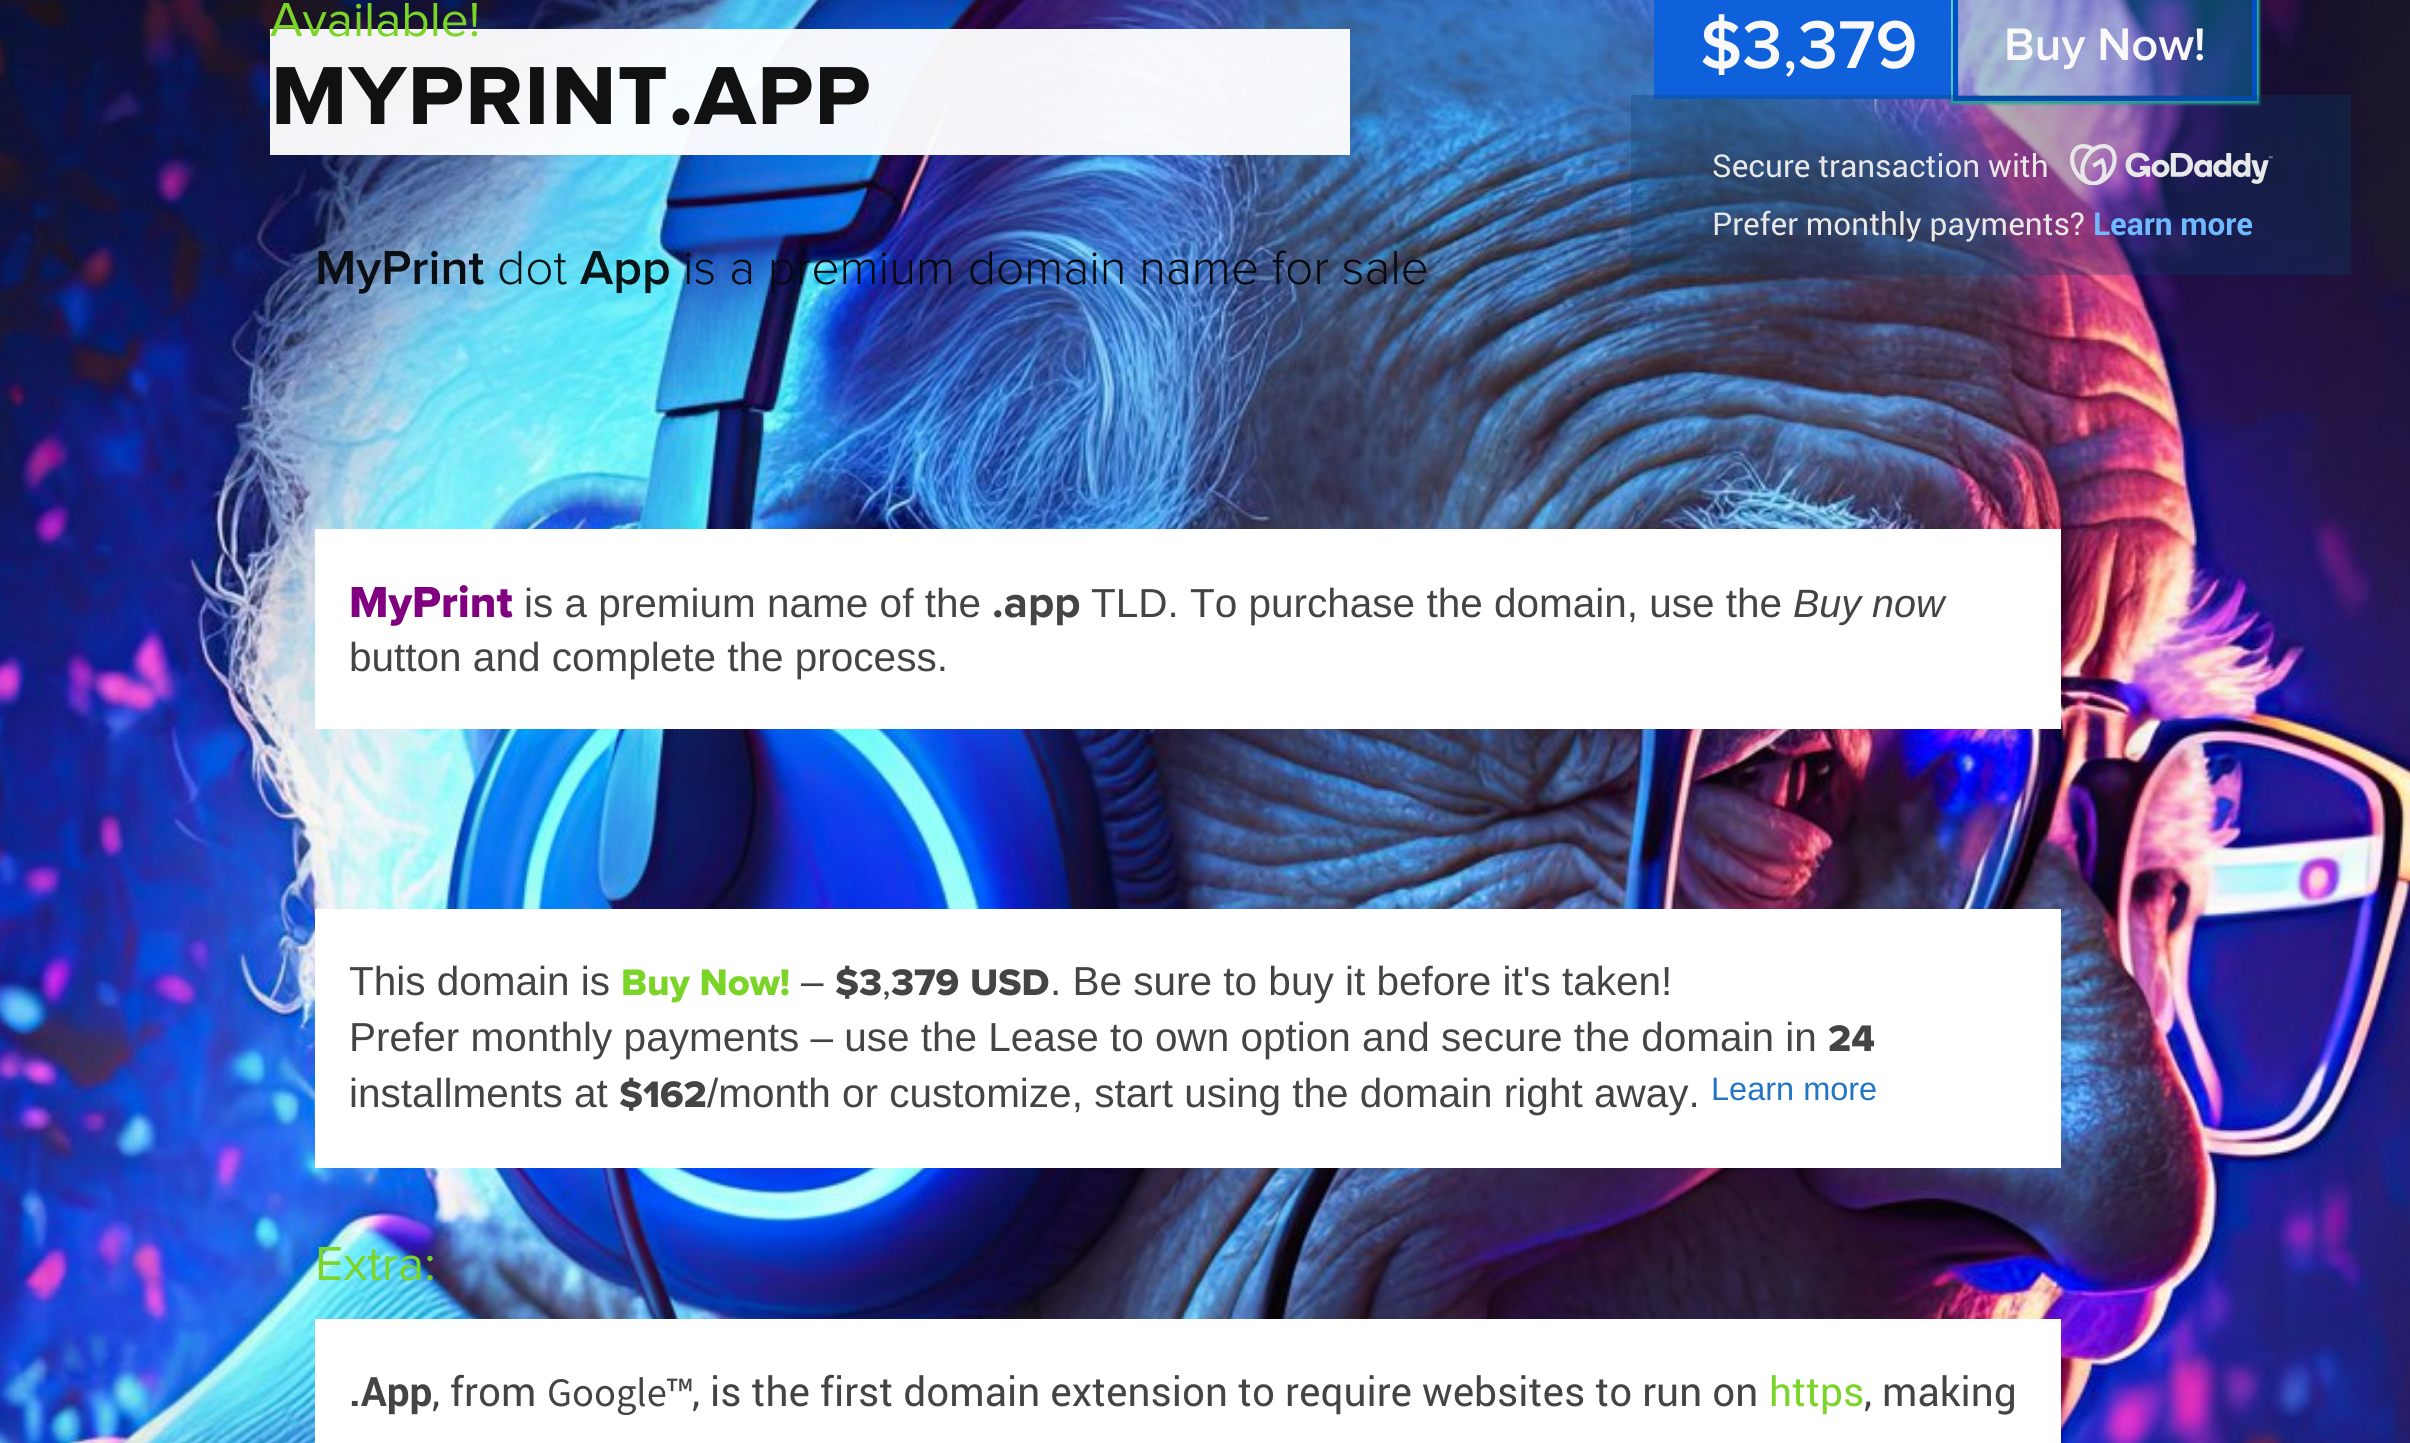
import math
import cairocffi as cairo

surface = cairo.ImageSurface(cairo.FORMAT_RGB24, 2410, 1443)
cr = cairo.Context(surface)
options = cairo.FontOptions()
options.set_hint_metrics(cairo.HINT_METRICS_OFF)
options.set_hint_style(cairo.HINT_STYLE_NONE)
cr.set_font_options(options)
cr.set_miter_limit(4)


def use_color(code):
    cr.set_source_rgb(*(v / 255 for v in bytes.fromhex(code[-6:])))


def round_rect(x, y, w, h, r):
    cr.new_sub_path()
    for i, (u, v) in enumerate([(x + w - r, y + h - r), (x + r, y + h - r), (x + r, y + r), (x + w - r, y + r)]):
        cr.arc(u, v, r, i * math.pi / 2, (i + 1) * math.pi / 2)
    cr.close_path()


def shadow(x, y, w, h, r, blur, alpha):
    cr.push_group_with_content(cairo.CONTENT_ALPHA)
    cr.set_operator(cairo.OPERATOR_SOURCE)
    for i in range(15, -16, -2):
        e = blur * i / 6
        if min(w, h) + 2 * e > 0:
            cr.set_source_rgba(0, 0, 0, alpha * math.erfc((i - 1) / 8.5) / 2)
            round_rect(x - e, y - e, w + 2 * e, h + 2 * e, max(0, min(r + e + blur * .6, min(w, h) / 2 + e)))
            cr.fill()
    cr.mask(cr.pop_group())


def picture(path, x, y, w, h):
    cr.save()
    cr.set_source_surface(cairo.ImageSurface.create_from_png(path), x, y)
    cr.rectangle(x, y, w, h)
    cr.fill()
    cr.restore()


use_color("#ffffff")
cr.paint()
picture("img1.png", 0, 0, 2410, 1443)
cr.set_source_rgba(1, 1, 1, 0.95)
cr.rectangle(270, 29, 1080, 126)
cr.fill()
cr.select_font_face("Proxima Nova")
cr.set_font_size(49.5)
use_color("#7bd428")
cr.move_to(270, 36)
cr.show_text("Available!")
cr.select_font_face("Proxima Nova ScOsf", cairo.FONT_SLANT_NORMAL, cairo.FONT_WEIGHT_BOLD)
cr.set_font_size(103.5)
use_color("#111111")
cr.move_to(270, 124)
cr.show_text("myprint.app")
cr.select_font_face("Proxima Nova SemiBold")
cr.set_font_size(49.5)
use_color("#0b0f13")
cr.move_to(315, 284)
cr.show_text("MyPrint")
cr.select_font_face("Proxima Nova Light")
use_color("#0a1518")
cr.move_to(497, 284)
cr.show_text("dot")
cr.select_font_face("Proxima Nova SemiBold")
cr.move_to(580, 284)
cr.show_text("App")
cr.select_font_face("Proxima Nova Light")
use_color("#050910")
cr.move_to(683, 284)
cr.show_text("is a premium domain name for sale")
cr.save()
cr.set_fill_rule(cairo.FILL_RULE_EVEN_ODD)
cr.new_path()
cr.move_to(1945, 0)
cr.line_to(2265, 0)
cr.line_to(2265, 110)
cr.line_to(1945, 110)
cr.close_path()
cr.move_to(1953, -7)
cr.line_to(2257, -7)
cr.line_to(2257, 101)
cr.line_to(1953, 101)
cr.close_path()
cr.clip()
use_color("#2ed1ab")
shadow(1951, -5, 308, 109, 0, 1.5, 1)
cr.restore()
use_color("#0f61db")
cr.rectangle(1654, 0, 297, 99)
cr.fill()
cr.select_font_face("Proxima Nova SemiBold")
cr.set_font_size(70)
use_color("#f9f9f9")
cr.move_to(1700, 68)
cr.show_text("$3")
cr.select_font_face("Proxima Nova")
cr.move_to(1782, 68)
cr.show_text(",")
cr.select_font_face("Proxima Nova SemiBold")
cr.move_to(1798, 68)
cr.show_text("379")
cr.set_source_rgba(0, 0.659, 0.839, 0.35)
cr.rectangle(1955.5, -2.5, 299, 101)
cr.fill_preserve()
use_color("#0050c5")
cr.set_line_width(5)
cr.stroke()
cr.set_source_rgba(0.031, 0.235, 0.424, 0.3)
cr.rectangle(1631, 95, 720, 180)
cr.fill()
cr.select_font_face("Roboto")
cr.set_font_size(31.5)
use_color("#e8e8e8")
cr.move_to(1712, 177)
cr.show_text("Secure transaction with")
picture("img2.png", 2070, 144, 203, 41)
cr.move_to(1712, 235)
cr.show_text("Prefer monthly payments?")
cr.select_font_face("Roboto", cairo.FONT_SLANT_NORMAL, cairo.FONT_WEIGHT_BOLD)
use_color("#70b8ff")
cr.move_to(2093, 235)
cr.show_text("Learn more")
cr.select_font_face("Proxima Nova SemiBold")
cr.set_font_size(47.25)
use_color("#f9f9f9")
cr.move_to(2004, 60)
cr.show_text("Buy Now!")
use_color("#ffffff")
cr.rectangle(315, 529, 1746, 200)
cr.fill()
cr.select_font_face("Proxima Nova ExtraBold")
cr.set_font_size(45)
use_color("#800080")
cr.move_to(349, 617)
cr.show_text("MyPrint")
cr.select_font_face("Liberation Sans")
cr.set_font_size(40.5)
use_color("#444444")
cr.move_to(524, 617)
cr.show_text("is a premium name of the")
cr.select_font_face("Proxima Nova", cairo.FONT_SLANT_NORMAL, cairo.FONT_WEIGHT_BOLD)
cr.set_font_size(45)
cr.move_to(992, 617)
cr.show_text(".app")
cr.select_font_face("Liberation Sans")
cr.set_font_size(40.5)
cr.move_to(1091, 617)
cr.show_text("TLD. To purchase the domain, use the")
cr.select_font_face("Liberation Sans", cairo.FONT_SLANT_ITALIC)
cr.set_font_size(39.5)
cr.move_to(1793, 617)
cr.show_text("Buy now")
cr.select_font_face("Liberation Sans")
cr.set_font_size(40.5)
cr.move_to(349, 671)
cr.show_text("button and complete the process.")
use_color("#ffffff")
cr.rectangle(315, 909, 1746, 259)
cr.fill()
use_color("#444444")
cr.move_to(349, 995)
cr.show_text("This domain is")
cr.select_font_face("Proxima Nova ExtraBold")
cr.set_font_size(38.25)
use_color("#7bd428")
cr.move_to(621, 995)
cr.show_text("Buy Now!")
cr.select_font_face("Liberation Sans")
cr.set_font_size(40.5)
use_color("#444444")
cr.move_to(801, 995)
cr.show_text("–")
cr.select_font_face("Proxima Nova ExtraBold")
cr.set_font_size(38.25)
cr.move_to(835, 995)
cr.show_text("$3")
cr.move_to(891, 995)
cr.show_text("379")
cr.move_to(970, 995)
cr.show_text("USD")
cr.select_font_face("Liberation Sans")
cr.set_font_size(40.5)
cr.move_to(1050, 995)
cr.show_text(". Be sure to buy it before it's taken!")
cr.select_font_face("Proxima Nova")
cr.set_font_size(38.25)
cr.move_to(882, 995)
cr.show_text(",")
cr.select_font_face("Liberation Sans")
cr.set_font_size(40.5)
cr.move_to(349, 1051)
cr.show_text("Prefer monthly payments – use the Lease to own option and secure the domain in")
cr.select_font_face("Proxima Nova ExtraBold")
cr.set_font_size(38.25)
cr.move_to(1828, 1051)
cr.show_text("24")
cr.select_font_face("Liberation Sans")
cr.set_font_size(40.5)
cr.move_to(349, 1107)
cr.show_text("installments at")
cr.select_font_face("Proxima Nova ExtraBold")
cr.set_font_size(38.25)
cr.move_to(619, 1107)
cr.show_text("$162")
cr.select_font_face("Liberation Sans")
cr.set_font_size(40.5)
cr.move_to(707, 1107)
cr.show_text("/month or customize, start using the domain right away.")
cr.set_font_size(32.5)
use_color("#2374c4")
cr.move_to(1711, 1100)
cr.show_text("Learn more")
cr.select_font_face("Proxima Nova")
cr.set_font_size(49.5)
use_color("#7bd428")
cr.move_to(315, 1280)
cr.show_text("Extra:")
use_color("#ffffff")
cr.rectangle(315, 1319, 1746, 124)
cr.fill()
cr.select_font_face("Roboto", cairo.FONT_SLANT_NORMAL, cairo.FONT_WEIGHT_BOLD)
cr.set_font_size(40.5)
use_color("#444444")
cr.move_to(349, 1406)
cr.show_text(".App")
cr.select_font_face("Roboto")
cr.move_to(432, 1406)
cr.show_text(", from")
cr.select_font_face("Source Sans Pro")
cr.move_to(547, 1406)
cr.show_text("Google™")
cr.select_font_face("Roboto")
cr.move_to(692, 1406)
cr.show_text(", is the first domain extension to require websites to run on")
use_color("#7bd428")
cr.move_to(1769, 1406)
cr.show_text("https")
use_color("#444444")
cr.move_to(1864, 1406)
cr.show_text(", making")
surface.write_to_png("result.png")
